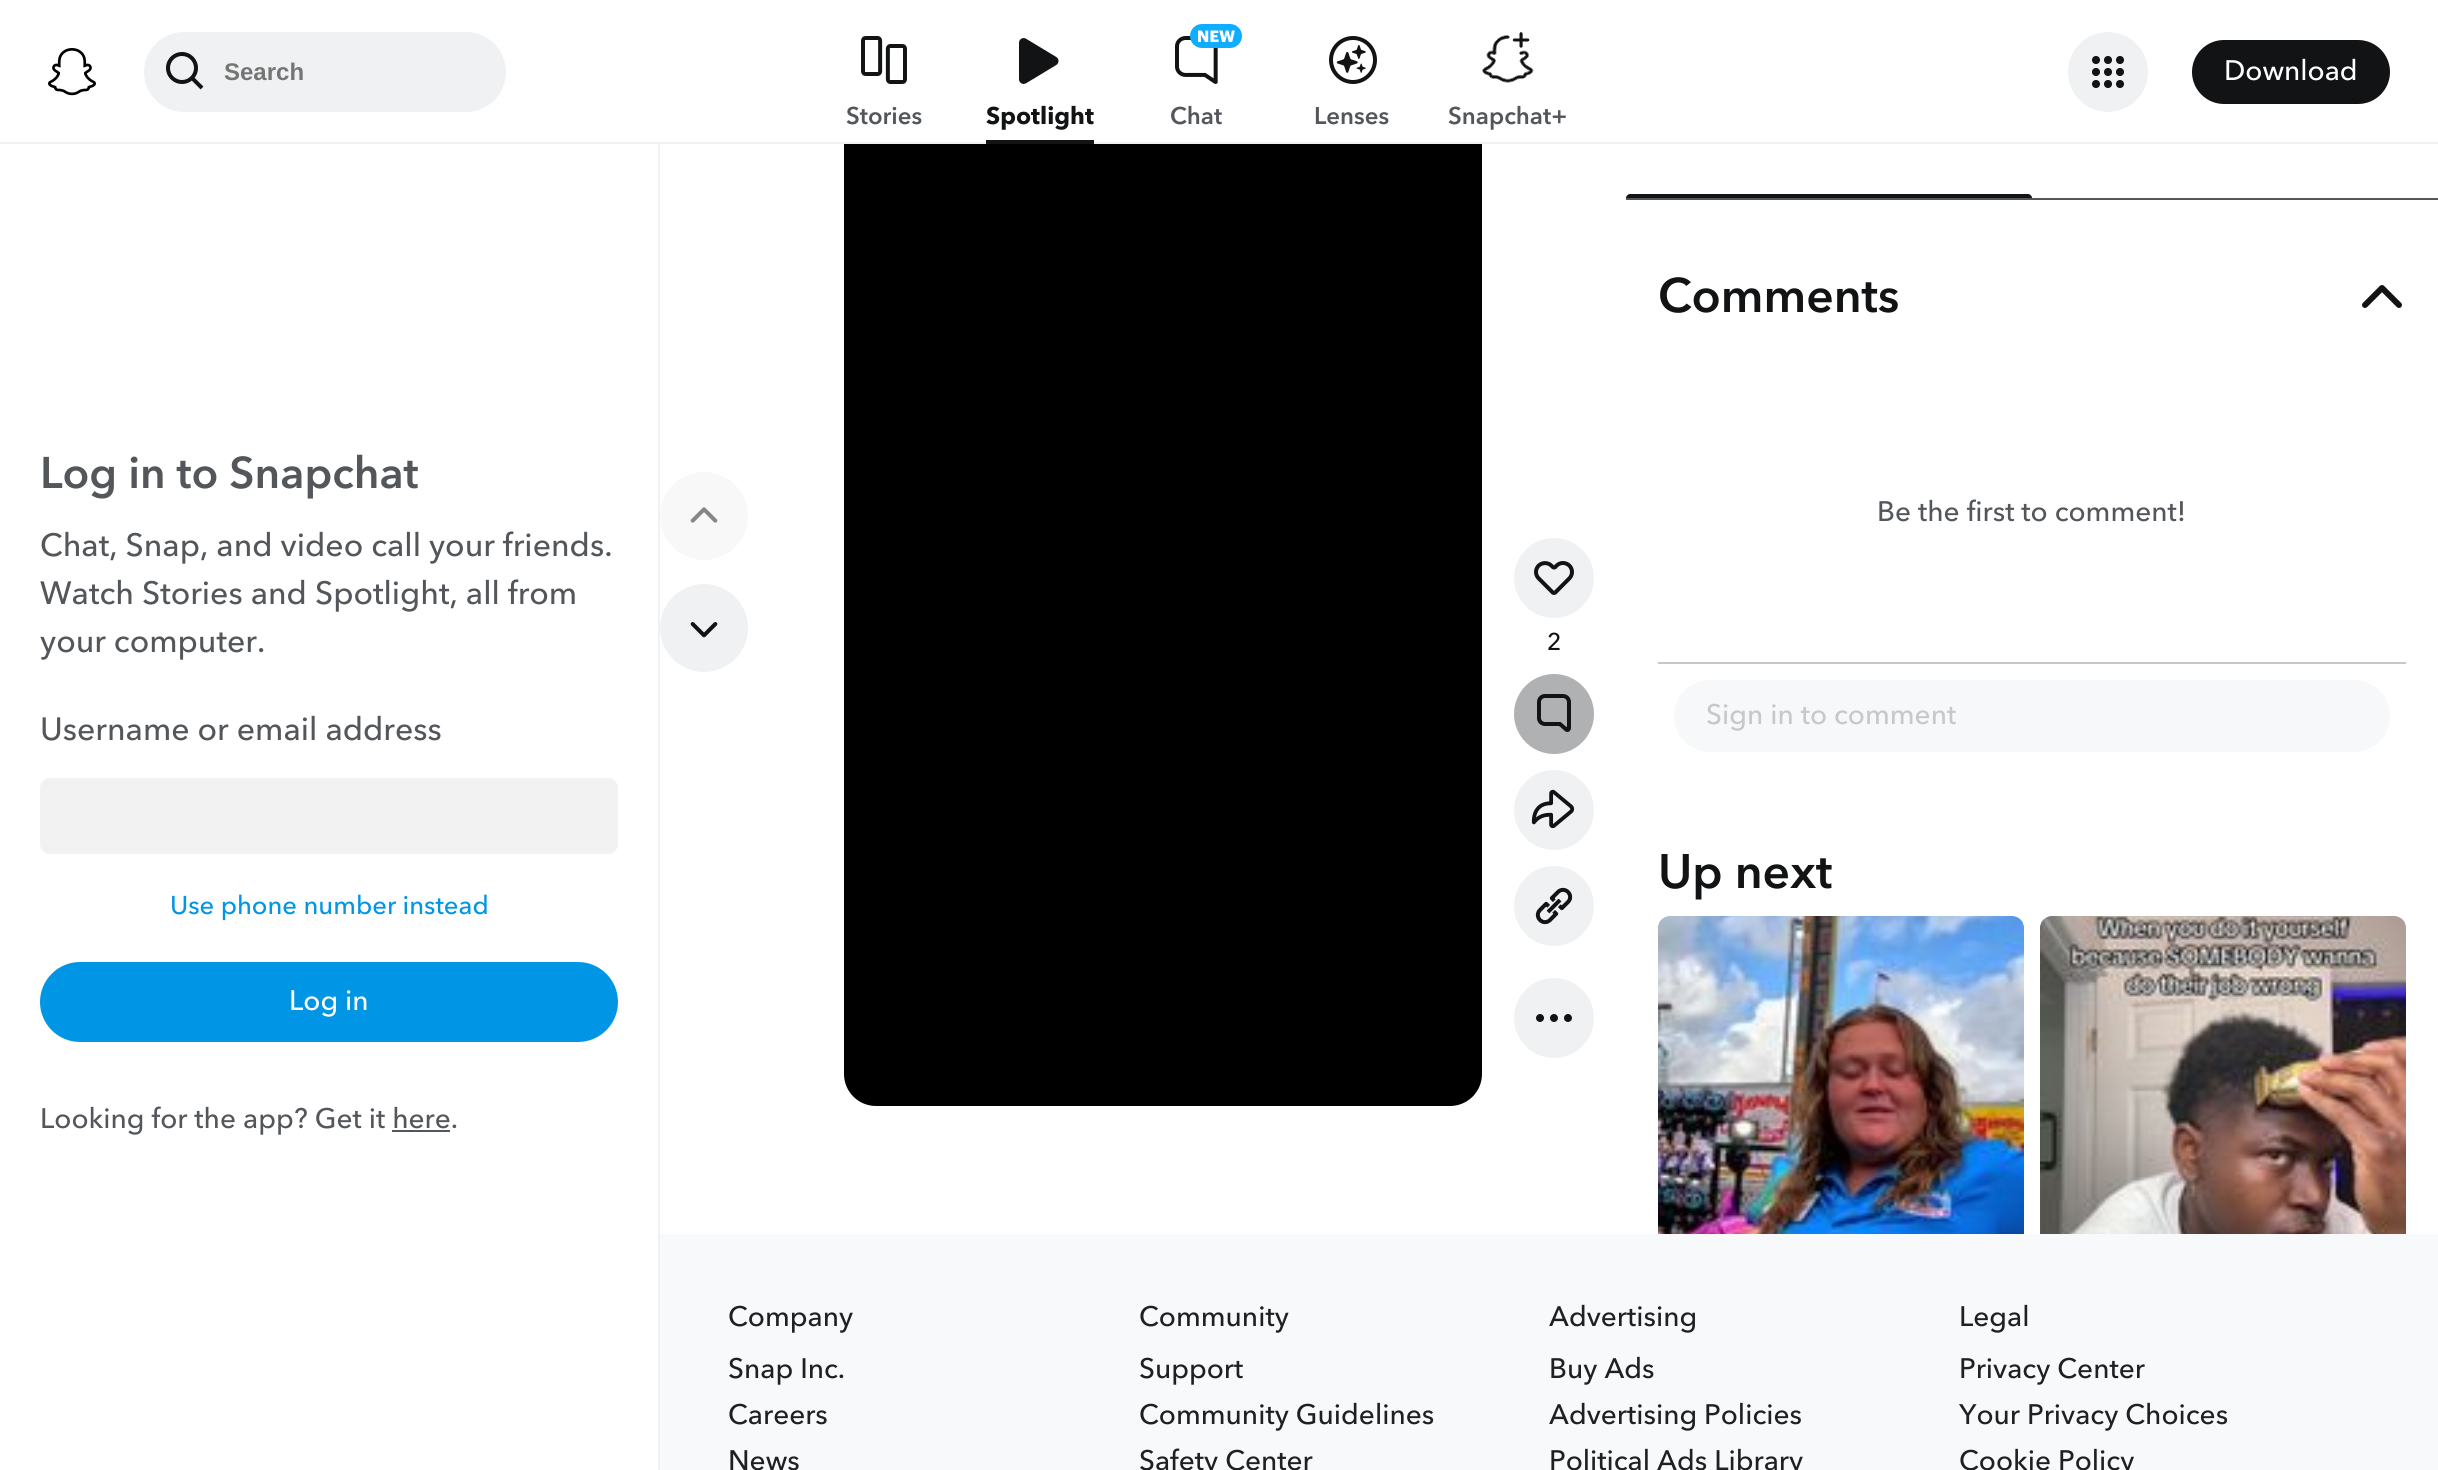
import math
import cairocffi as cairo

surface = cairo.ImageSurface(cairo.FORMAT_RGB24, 2438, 1470)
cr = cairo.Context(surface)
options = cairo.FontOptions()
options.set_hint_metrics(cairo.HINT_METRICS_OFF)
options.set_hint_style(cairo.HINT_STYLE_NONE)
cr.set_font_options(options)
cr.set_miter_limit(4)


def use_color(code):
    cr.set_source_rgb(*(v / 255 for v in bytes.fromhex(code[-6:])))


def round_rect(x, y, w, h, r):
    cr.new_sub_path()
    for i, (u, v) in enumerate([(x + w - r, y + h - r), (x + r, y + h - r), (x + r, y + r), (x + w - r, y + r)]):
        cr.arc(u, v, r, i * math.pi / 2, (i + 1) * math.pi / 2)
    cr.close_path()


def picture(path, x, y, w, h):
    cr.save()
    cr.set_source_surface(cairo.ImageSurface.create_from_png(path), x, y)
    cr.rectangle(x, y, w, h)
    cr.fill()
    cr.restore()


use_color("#ffffff")
cr.paint()
use_color("#000000")
round_rect(844, -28, 638, 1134, 32)
cr.fill()
use_color("#ffffff")
cr.rectangle(844, 0, 638, 142)
cr.fill()
use_color("#f0f1f2")
cr.rectangle(0, 142, 2438, 2)
cr.fill()
picture("img1.png", 48, 48, 48, 48)
round_rect(144, 32, 362, 80, 40)
cr.fill()
picture("img2.png", 166, 52, 38, 38)
cr.select_font_face("Liberation Sans", cairo.FONT_SLANT_NORMAL, cairo.FONT_WEIGHT_BOLD)
cr.set_font_size(24)
use_color("#757575")
cr.move_to(224, 80)
cr.show_text("Search")
use_color("#f0f1f2")
cr.new_path()
cr.arc(2108, 72, 40, 0, 2 * math.pi)
cr.fill()
picture("img3.png", 2092, 56, 32, 32)
use_color("#121314")
round_rect(2192, 40, 198, 64, 32)
cr.fill()
cr.select_font_face("Avenir Next Medium")
cr.set_font_size(28)
use_color("#ffffff")
cr.move_to(2224, 80)
cr.show_text("Download")
picture("img4.png", 861, 36, 46, 48)
cr.select_font_face("Avenir Next SemiBold")
cr.set_font_size(24)
use_color("#53575b")
cr.move_to(846, 124)
cr.show_text("Stories")
picture("img5.png", 1019, 38, 40, 46)
use_color("#121314")
cr.rectangle(986, 140, 108, 4)
cr.fill()
cr.select_font_face("Avenir Next", cairo.FONT_SLANT_NORMAL, cairo.FONT_WEIGHT_BOLD)
cr.move_to(986, 124)
cr.show_text("Spotlight")
picture("img7.png", 1175, 36, 43, 48)
picture("img6.png", 1190, 24, 52, 24)
cr.select_font_face("Avenir Next SemiBold")
use_color("#53575b")
cr.move_to(1170, 124)
cr.show_text("Chat")
picture("img8.png", 1329, 36, 48, 48)
cr.move_to(1314, 124)
cr.show_text("Lenses")
picture("img9.png", 1482, 32, 52, 51)
cr.move_to(1448, 124)
cr.show_text("Snapchat+")
use_color("#f8f8f9")
cr.new_path()
cr.arc(704, 516, 44, 0, 2 * math.pi)
cr.fill()
picture("img10.png", 690, 507, 28, 16)
use_color("#f0f1f2")
cr.arc(704, 628, 44, 0, 2 * math.pi)
cr.fill()
picture("img11.png", 690, 622, 28, 16)
cr.arc(1554, 578, 40, 0, 2 * math.pi)
cr.fill()
picture("img12.png", 1534, 561, 40, 34)
cr.select_font_face("Avenir Next Medium")
use_color("#121314")
cr.move_to(1547, 650)
cr.show_text("2")
use_color("#b0b1b2")
cr.new_path()
cr.arc(1554, 714, 40, 0, 2 * math.pi)
cr.fill()
picture("img13.png", 1537, 694, 34, 38)
use_color("#f0f1f2")
cr.arc(1554, 810, 40, 0, 2 * math.pi)
cr.fill()
picture("img14.png", 1531, 789, 44, 40)
cr.arc(1554, 906, 40, 0, 2 * math.pi)
cr.fill()
picture("img15.png", 1535, 887, 38, 38)
cr.arc(1554, 1018, 40, 0, 2 * math.pi)
cr.fill()
picture("img16.png", 1536, 1014, 36, 8)
use_color("#53575b")
cr.rectangle(1626, 198, 812, 2)
cr.fill()
use_color("#121314")
cr.new_path()
cr.move_to(1630, 194)
cr.line_to(2028, 194)
cr.curve_to(2030, 194, 2032, 196, 2032, 198)
cr.line_to(1626, 198)
cr.curve_to(1626, 196, 1628, 194, 1630, 194)
cr.close_path()
cr.fill()
cr.select_font_face("Avenir Next SemiBold")
cr.set_font_size(48)
cr.move_to(1658, 312)
cr.show_text("Comments")
picture("img17.png", 2362, 285, 40, 23)
cr.select_font_face("Avenir Next Medium")
cr.set_font_size(28)
use_color("#53575b")
cr.move_to(1877, 521)
cr.show_text("Be the first to comment!")
use_color("#c7c7cc")
cr.rectangle(1658, 662, 748, 2)
cr.fill()
use_color("#f7f8f9")
round_rect(1674, 680, 716, 72, 36)
cr.fill()
use_color("#c7c7cc")
cr.move_to(1706, 724)
cr.show_text("Sign in to comment")
cr.select_font_face("Avenir Next SemiBold")
cr.set_font_size(48)
use_color("#121314")
cr.move_to(1658, 888)
cr.show_text("Up next")
picture("img18.png", 1658, 916, 366, 318)
picture("img19.png", 2040, 916, 366, 318)
use_color("#f8f9fb")
cr.rectangle(660, 1234, 1778, 236)
cr.fill()
cr.select_font_face("Avenir Next Medium")
cr.set_font_size(28)
use_color("#202021")
cr.move_to(728, 1326)
cr.show_text("Company")
cr.move_to(728, 1378)
cr.show_text("Snap Inc.")
cr.move_to(728, 1424)
cr.show_text("Careers")
cr.move_to(728, 1470)
cr.show_text("News")
cr.move_to(1139, 1326)
cr.show_text("Community")
cr.move_to(1139, 1378)
cr.show_text("Support")
cr.move_to(1139, 1424)
cr.show_text("Community Guidelines")
cr.move_to(1139, 1470)
cr.show_text("Safety Center")
cr.move_to(1549, 1326)
cr.show_text("Advertising")
cr.move_to(1549, 1378)
cr.show_text("Buy Ads")
cr.move_to(1549, 1424)
cr.show_text("Advertising Policies")
cr.move_to(1549, 1470)
cr.show_text("Political Ads Library")
cr.move_to(1959, 1326)
cr.show_text("Legal")
cr.move_to(1959, 1378)
cr.show_text("Privacy Center")
cr.move_to(1959, 1424)
cr.show_text("Your Privacy Choices")
cr.move_to(1959, 1470)
cr.show_text("Cookie Policy")
use_color("#f0f1f2")
cr.rectangle(658, 144, 2, 1326)
cr.fill()
cr.select_font_face("Avenir Next SemiBold")
cr.set_font_size(44)
use_color("#53575b")
cr.move_to(40, 488)
cr.show_text("Log in to Snapchat")
cr.select_font_face("Avenir Next Medium")
cr.set_font_size(32)
cr.move_to(40, 556)
cr.show_text("Chat, Snap, and video call your friends.")
cr.move_to(40, 604)
cr.show_text("Watch Stories and Spotlight, all from")
cr.move_to(40, 652)
cr.show_text("your computer.")
cr.move_to(40, 740)
cr.show_text("Username or email address")
use_color("#f2f2f2")
round_rect(40, 778, 578, 76, 10)
cr.fill()
cr.set_font_size(25.6)
use_color("#0096e5")
cr.move_to(170, 914)
cr.show_text("Use phone number instead")
round_rect(40, 962, 578, 80, 40)
cr.fill()
cr.set_font_size(28)
use_color("#ffffff")
cr.move_to(289, 1010)
cr.show_text("Log in")
use_color("#53575b")
cr.move_to(40, 1128)
cr.show_text("Looking for the app? Get it here.")
cr.rectangle(392, 1130, 58, 2)
cr.fill()
surface.write_to_png("result.png")
